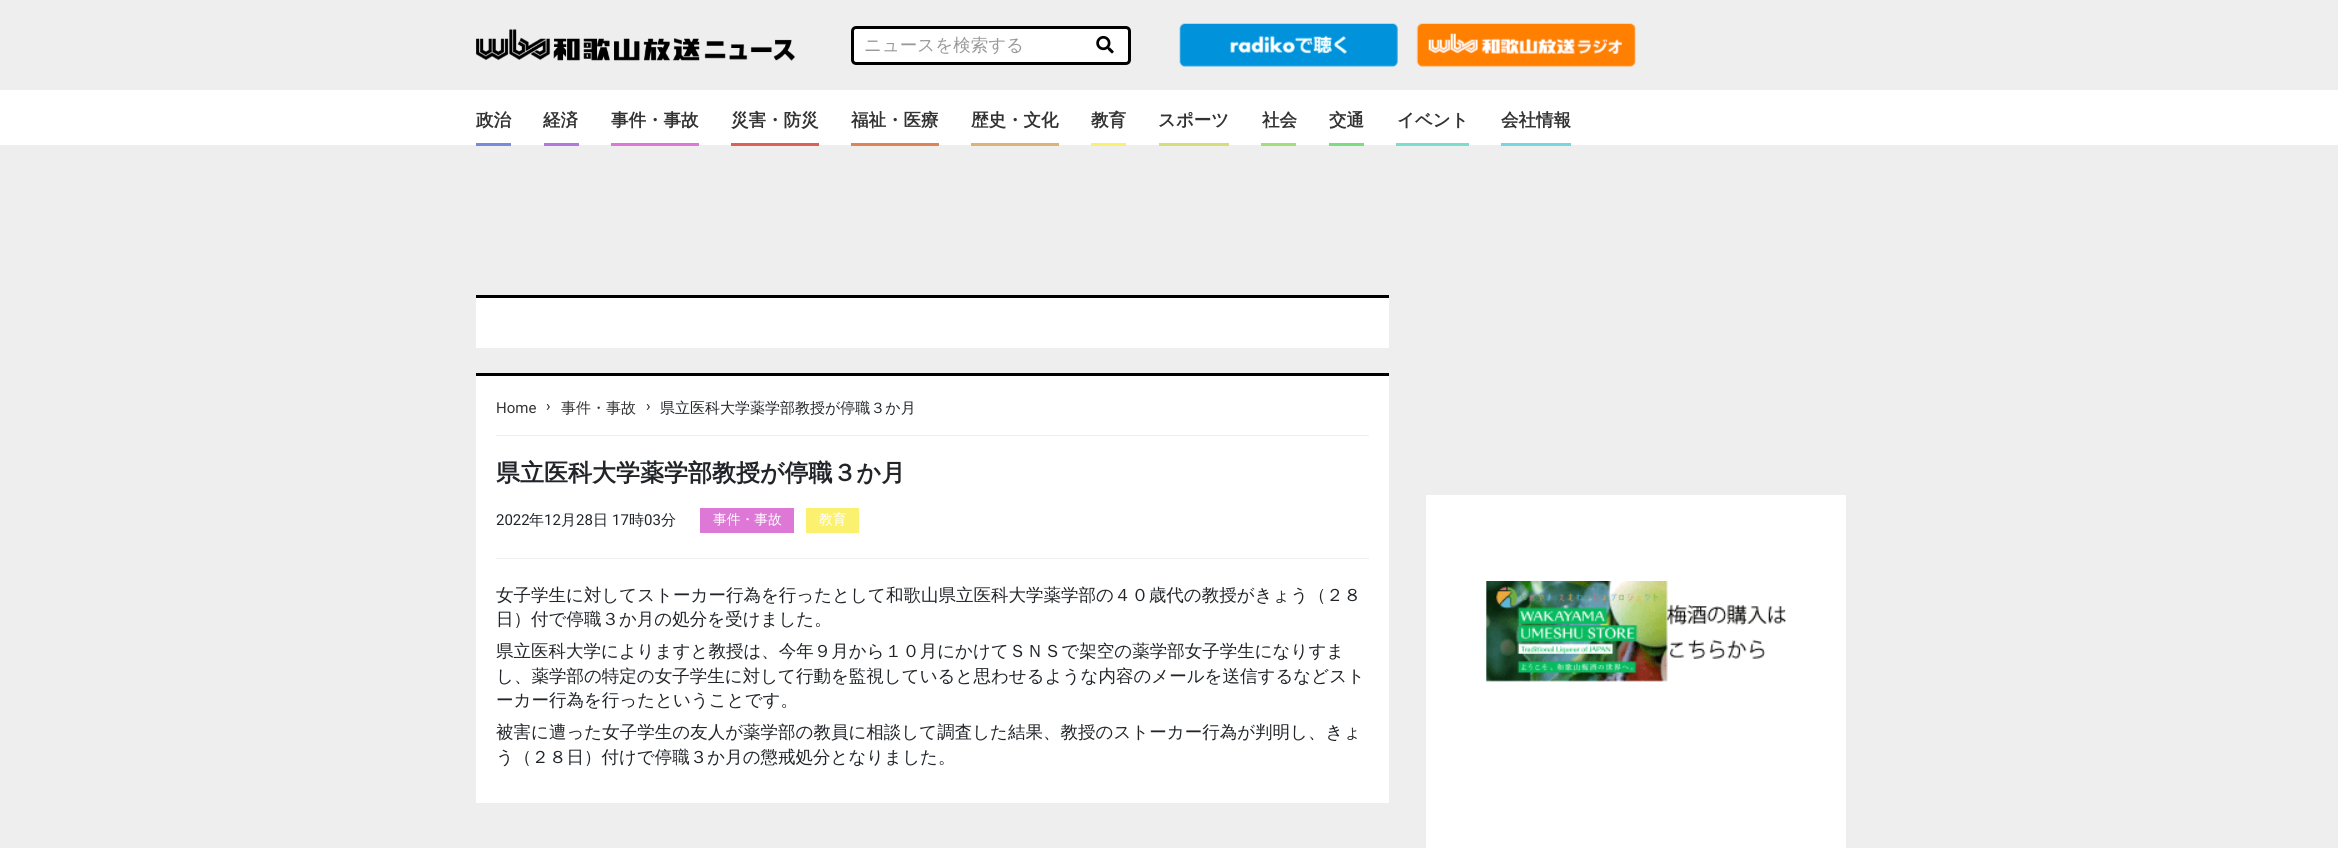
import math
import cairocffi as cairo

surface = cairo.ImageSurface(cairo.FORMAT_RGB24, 2338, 848)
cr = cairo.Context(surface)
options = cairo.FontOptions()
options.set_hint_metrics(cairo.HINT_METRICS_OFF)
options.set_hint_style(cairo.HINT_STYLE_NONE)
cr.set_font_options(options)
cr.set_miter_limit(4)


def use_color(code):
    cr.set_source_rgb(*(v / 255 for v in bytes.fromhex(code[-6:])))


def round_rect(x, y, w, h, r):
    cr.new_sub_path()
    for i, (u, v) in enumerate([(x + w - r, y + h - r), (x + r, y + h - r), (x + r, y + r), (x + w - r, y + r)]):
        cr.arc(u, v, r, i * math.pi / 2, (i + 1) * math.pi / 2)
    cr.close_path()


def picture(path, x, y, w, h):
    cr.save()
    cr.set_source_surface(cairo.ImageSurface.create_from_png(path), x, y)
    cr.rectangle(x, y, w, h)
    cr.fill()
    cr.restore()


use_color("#eeeeee")
cr.paint()
picture("img1.png", 476, 29, 319, 32)
use_color("#ffffff")
round_rect(852.5, 27.5, 277, 36, 3.5)
cr.fill_preserve()
use_color("#000000")
cr.set_line_width(3)
cr.stroke()
cr.select_font_face("WenQuanYi Zen Hei Medium")
cr.set_font_size(17.5)
use_color("#999999")
cr.move_to(864, 51)
cr.show_text("ニュースを検索する")
picture("img2.png", 1096, 35, 18, 19)
picture("img3.png", 1179, 23, 219, 44)
picture("img4.png", 1416, 23, 220, 44)
use_color("#ffffff")
cr.rectangle(0, 90, 2338, 55)
cr.fill()
use_color("#788ade")
cr.rectangle(476, 143, 35, 3)
cr.fill()
cr.select_font_face("WenQuanYi Zen Hei", cairo.FONT_SLANT_NORMAL, cairo.FONT_WEIGHT_BOLD)
use_color("#333333")
cr.move_to(476, 126)
cr.show_text("政治")
use_color("#b378de")
cr.rectangle(544, 143, 35, 3)
cr.fill()
use_color("#333333")
cr.move_to(543, 126)
cr.show_text("経済")
use_color("#de78d6")
cr.rectangle(611, 143, 88, 3)
cr.fill()
use_color("#333333")
cr.move_to(611, 126)
cr.show_text("事件・事故")
use_color("#de6157")
cr.rectangle(731, 143, 88, 3)
cr.fill()
use_color("#333333")
cr.move_to(731, 126)
cr.show_text("災害・防災")
use_color("#de8457")
cr.rectangle(851, 143, 88, 3)
cr.fill()
use_color("#333333")
cr.move_to(851, 126)
cr.show_text("福祉・医療")
use_color("#deb378")
cr.rectangle(971, 143, 88, 3)
cr.fill()
use_color("#333333")
cr.move_to(971, 126)
cr.show_text("歴史・文化")
use_color("#fcf16e")
cr.rectangle(1091, 143, 35, 3)
cr.fill()
use_color("#333333")
cr.move_to(1091, 126)
cr.show_text("教育")
use_color("#d6de78")
cr.rectangle(1159, 143, 70, 3)
cr.fill()
use_color("#333333")
cr.move_to(1158, 126)
cr.show_text("スポーツ")
use_color("#a3de78")
cr.rectangle(1261, 143, 35, 3)
cr.fill()
use_color("#333333")
cr.move_to(1262, 126)
cr.show_text("社会")
use_color("#78de80")
cr.rectangle(1329, 143, 35, 3)
cr.fill()
use_color("#333333")
cr.move_to(1329, 126)
cr.show_text("交通")
use_color("#78decd")
cr.rectangle(1396, 143, 73, 3)
cr.fill()
use_color("#333333")
cr.move_to(1397, 126)
cr.show_text("イベント")
use_color("#78d6de")
cr.rectangle(1501, 143, 70, 3)
cr.fill()
use_color("#333333")
cr.move_to(1501, 126)
cr.show_text("会社情報")
use_color("#ffffff")
cr.rectangle(476, 298, 913, 50)
cr.fill()
use_color("#000000")
cr.rectangle(476, 295, 913, 3)
cr.fill()
use_color("#ffffff")
cr.rectangle(476, 376, 913, 427)
cr.fill()
use_color("#000000")
cr.rectangle(476, 373, 913, 3)
cr.fill()
cr.select_font_face("Roboto")
cr.set_font_size(15)
use_color("#333333")
cr.move_to(496, 413)
cr.show_text("Home")
use_color("#212529")
cr.move_to(546, 411)
cr.show_text("›")
cr.select_font_face("WenQuanYi Zen Hei Medium")
use_color("#333333")
cr.move_to(561, 413)
cr.show_text("事件・事故")
cr.select_font_face("Roboto")
use_color("#212529")
cr.move_to(646, 411)
cr.show_text("›")
cr.select_font_face("WenQuanYi Zen Hei Medium")
cr.move_to(660, 413)
cr.show_text("県立医科大学薬学部教授が停職３か月")
use_color("#eeeeee")
cr.rectangle(496, 435, 873, 1)
cr.fill()
cr.select_font_face("WenQuanYi Zen Hei", cairo.FONT_SLANT_NORMAL, cairo.FONT_WEIGHT_BOLD)
cr.set_font_size(24)
use_color("#212529")
cr.move_to(496, 481)
cr.show_text("県立医科大学薬学部教授が停職３か月")
cr.select_font_face("Roboto")
cr.set_font_size(15)
cr.move_to(496, 525)
cr.show_text("2022")
cr.select_font_face("WenQuanYi Zen Hei Medium")
cr.move_to(529, 525)
cr.show_text("年")
cr.select_font_face("Roboto")
cr.move_to(544, 525)
cr.show_text("12")
cr.select_font_face("WenQuanYi Zen Hei Medium")
cr.move_to(561, 525)
cr.show_text("月")
cr.select_font_face("Roboto")
cr.move_to(576, 525)
cr.show_text("28")
cr.select_font_face("WenQuanYi Zen Hei Medium")
cr.move_to(593, 525)
cr.show_text("日")
cr.select_font_face("Roboto")
cr.move_to(612, 525)
cr.show_text("17")
cr.select_font_face("WenQuanYi Zen Hei Medium")
cr.move_to(629, 525)
cr.show_text("時")
cr.select_font_face("Roboto")
cr.move_to(644, 525)
cr.show_text("03")
cr.select_font_face("WenQuanYi Zen Hei Medium")
cr.move_to(661, 525)
cr.show_text("分")
use_color("#de78d6")
cr.rectangle(700, 508, 94, 25)
cr.fill()
cr.set_font_size(13.75)
use_color("#ffffff")
cr.move_to(713, 524)
cr.show_text("事件・事故")
use_color("#fcf16e")
cr.rectangle(806, 508, 53, 25)
cr.fill()
use_color("#ffffff")
cr.move_to(819, 524)
cr.show_text("教育")
use_color("#eeeeee")
cr.rectangle(496, 558, 873, 1)
cr.fill()
cr.set_font_size(17.5)
use_color("#212529")
cr.move_to(496, 601)
cr.show_text("女子学生に対してストーカー行為を行ったとして和歌山県立医科大学薬学部の４０歳代の教授がきょう（２８")
cr.move_to(496, 625)
cr.show_text("日）付で停職３か月の処分を受けました。")
cr.move_to(496, 657)
cr.show_text("県立医科大学によりますと教授は、今年９月から１０月にかけてＳＮＳで架空の薬学部女子学生になりすま")
cr.move_to(496, 682)
cr.show_text("し、薬学部の特定の女子学生に対して行動を監視していると思わせるような内容のメールを送信するなどスト")
cr.move_to(496, 706)
cr.show_text("ーカー行為を行ったということです。")
cr.move_to(496, 738)
cr.show_text("被害に遭った女子学生の友人が薬学部の教員に相談して調査した結果、教授のストーカー行為が判明し、きょ")
cr.move_to(496, 763)
cr.show_text("う（２８日）付けで停職３か月の懲戒処分となりました。")
use_color("#ffffff")
cr.rectangle(1426, 495, 420, 353)
cr.fill()
picture("img5.png", 1486, 581, 300, 101)
surface.write_to_png("result.png")
